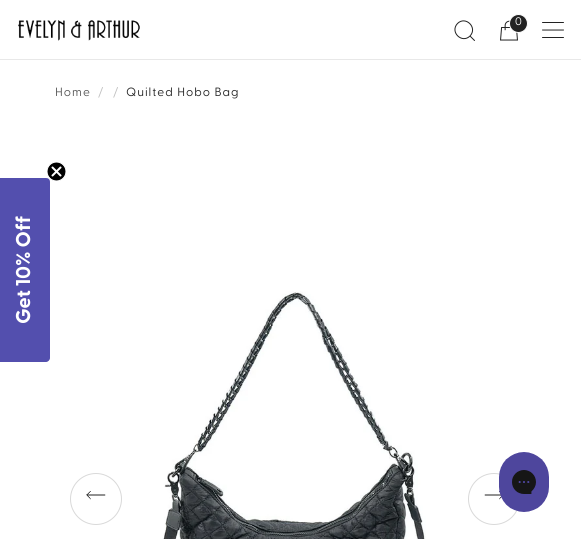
import math
import cairocffi as cairo

surface = cairo.ImageSurface(cairo.FORMAT_RGB24, 581, 539)
cr = cairo.Context(surface)
options = cairo.FontOptions()
options.set_hint_metrics(cairo.HINT_METRICS_OFF)
options.set_hint_style(cairo.HINT_STYLE_NONE)
cr.set_font_options(options)
cr.set_miter_limit(4)


def use_color(code):
    cr.set_source_rgb(*(v / 255 for v in bytes.fromhex(code[-6:])))


def spaced_text(x, y, s, letter, word):
    cr.move_to(x, y)
    for ch in s:
        cr.show_text(ch)
        cr.rel_move_to(letter + word * (ch == ' '), 0)


def picture(path, x, y, w, h):
    cr.save()
    cr.set_source_surface(cairo.ImageSurface.create_from_png(path), x, y)
    cr.rectangle(x, y, w, h)
    cr.fill()
    cr.restore()


use_color("#ffffff")
cr.paint()
use_color("#e8e8e8")
cr.rectangle(0, 59, 581, 1)
cr.fill()
picture("img1.png", 18, 20, 122, 21)
cr.new_path()
cr.move_to(474.5, 40.5)
cr.line_to(470, 36)
cr.move_to(470, 36)
cr.curve_to(478, 27.5, 465.5, 15.5, 457.5, 23.5)
cr.curve_to(449.5, 32, 462, 44, 470, 36)
cr.close_path()
use_color("#222222")
cr.set_line_width(1)
cr.set_line_cap(cairo.LINE_CAP_ROUND)
cr.set_line_join(cairo.LINE_JOIN_ROUND)
cr.stroke()
picture("img2.png", 500, 20, 18, 21)
cr.arc(518.5, 23.5, 9, 0, 2 * math.pi)
cr.fill_preserve()
use_color("#ffffff")
cr.set_line_cap(cairo.LINE_CAP_BUTT)
cr.set_line_join(cairo.LINE_JOIN_MITER)
cr.stroke()
cr.select_font_face("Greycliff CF")
cr.set_font_size(11)
cr.move_to(515, 25)
cr.show_text("0")
picture("img3.png", 542, 22, 22, 16)
cr.set_font_size(12)
use_color("#595959")
spaced_text(55, 96, "Home", 1, 0)
use_color("#bfbfbf")
spaced_text(98, 96, "/", 1, 0)
spaced_text(113, 96, "/", 1, 0)
use_color("#262626")
spaced_text(126, 96, "Quilted Hobo Bag", 1, 0)
picture("img4.png", 162, 291, 264, 248)
cr.arc(96, 499, 25.5, 0, 2 * math.pi)
use_color("#d9d9d9")
cr.stroke()
picture("img5.png", 86, 491, 20, 9)
cr.arc(494, 499, 25.5, 0, 2 * math.pi)
cr.stroke()
picture("img6.png", 484, 491, 18, 9)
use_color("#534fae")
cr.new_path()
cr.move_to(0, 362)
cr.line_to(0, 178)
cr.line_to(46, 178)
cr.curve_to(48, 178, 50, 179, 50, 182)
cr.line_to(50, 358)
cr.curve_to(50, 360, 48, 362, 46, 362)
cr.close_path()
cr.fill()
picture("img7.png", 47, 162, 19, 19)
cr.select_font_face("Greycliff CF", cairo.FONT_SLANT_NORMAL, cairo.FONT_WEIGHT_BOLD)
cr.set_font_size(20)
use_color("#ffffff")
cr.save()
cr.translate(30, 324)
cr.rotate(-90 * math.pi / 180)
cr.move_to(0, 0)
cr.show_text("Get 10% Off")
cr.restore()
picture("img8.png", 499, 452, 50, 60)
surface.write_to_png("result.png")
